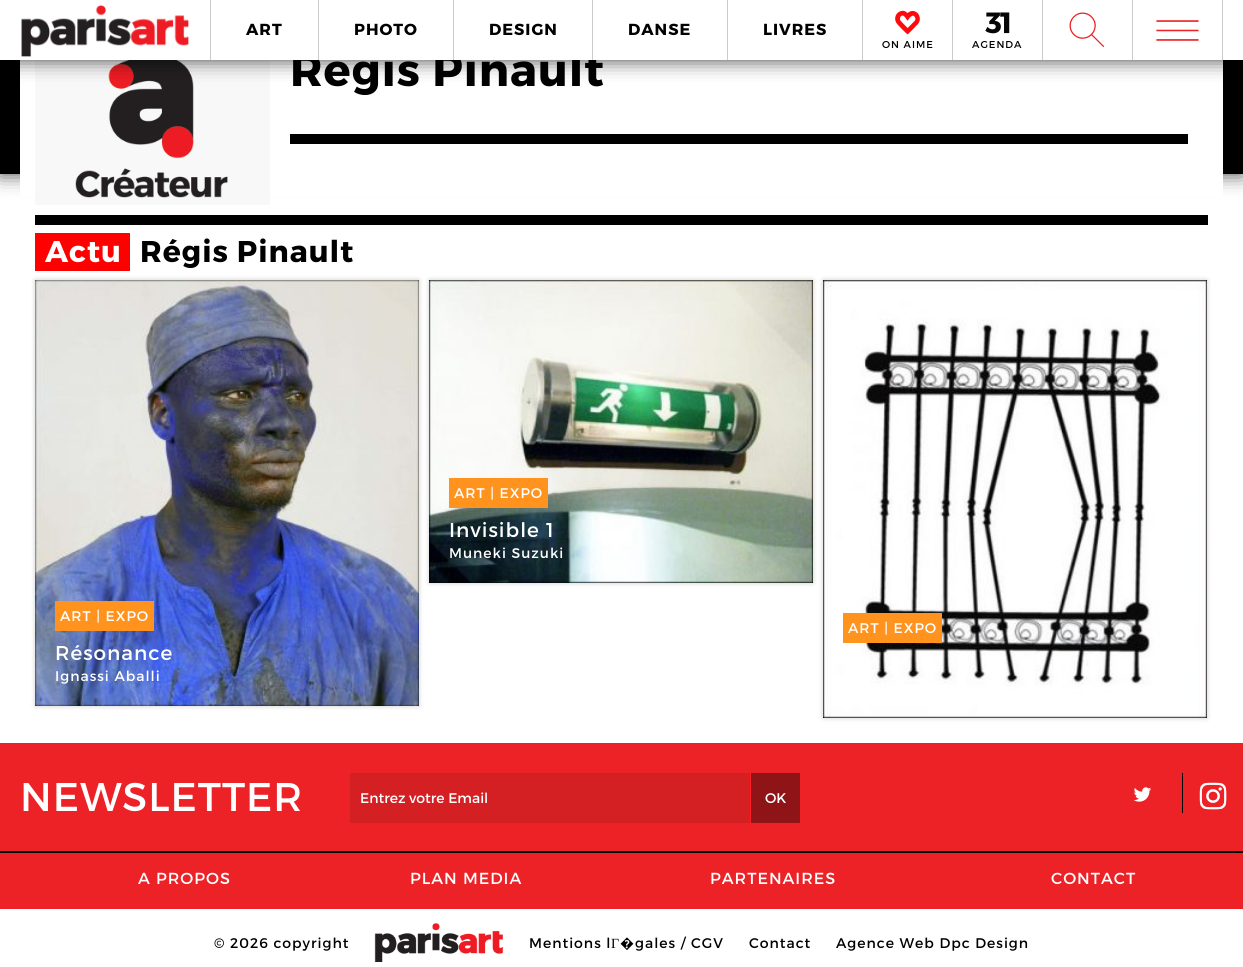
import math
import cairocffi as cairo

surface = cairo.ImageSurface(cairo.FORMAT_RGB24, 1243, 967)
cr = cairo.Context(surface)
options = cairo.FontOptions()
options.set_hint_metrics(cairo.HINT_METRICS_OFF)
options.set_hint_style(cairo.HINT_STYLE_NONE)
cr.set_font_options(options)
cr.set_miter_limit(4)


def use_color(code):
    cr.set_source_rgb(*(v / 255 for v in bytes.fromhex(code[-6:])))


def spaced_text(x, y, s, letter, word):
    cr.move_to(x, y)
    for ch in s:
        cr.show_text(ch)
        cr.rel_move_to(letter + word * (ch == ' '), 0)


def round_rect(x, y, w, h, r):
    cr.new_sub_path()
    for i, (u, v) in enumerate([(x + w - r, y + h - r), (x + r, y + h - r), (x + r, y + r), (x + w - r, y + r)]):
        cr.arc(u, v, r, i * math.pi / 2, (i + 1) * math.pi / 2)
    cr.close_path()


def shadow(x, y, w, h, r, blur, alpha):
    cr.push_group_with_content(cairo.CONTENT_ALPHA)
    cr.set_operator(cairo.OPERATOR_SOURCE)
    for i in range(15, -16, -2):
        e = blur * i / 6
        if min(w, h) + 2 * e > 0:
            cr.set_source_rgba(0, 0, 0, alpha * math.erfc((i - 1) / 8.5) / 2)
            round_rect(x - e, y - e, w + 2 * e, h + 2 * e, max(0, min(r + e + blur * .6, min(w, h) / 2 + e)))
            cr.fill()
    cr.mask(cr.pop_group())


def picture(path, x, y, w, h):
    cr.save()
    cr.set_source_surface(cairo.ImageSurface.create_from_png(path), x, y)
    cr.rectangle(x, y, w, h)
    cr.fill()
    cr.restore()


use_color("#ffffff")
cr.paint()
use_color("#000000")
shadow(0, -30, 1243, 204, 0, 10, 0.75)
use_color("#000000")
cr.rectangle(0, 60, 1243, 114)
cr.fill()
use_color("#ffffff")
cr.rectangle(20, 60, 1203, 136)
cr.fill()
picture("img4.png", 35, 60, 235, 145)
use_color("#000000")
shadow(0, 0, 1243, 60, 0, 10, 0.75)
cr.select_font_face("Montserrat", cairo.FONT_SLANT_NORMAL, cairo.FONT_WEIGHT_BOLD)
cr.set_font_size(45)
use_color("#000000")
spaced_text(290, 86, "Régis Pinault", 1, 0)
use_color("#ffffff")
cr.rectangle(0, 0, 1243, 60)
cr.fill()
picture("img1.png", 21, 5, 168, 52)
use_color("#cccccc")
cr.rectangle(318, 0, 1, 60)
cr.fill()
cr.rectangle(210, 0, 1, 60)
cr.fill()
cr.set_font_size(16)
use_color("#000000")
spaced_text(246, 35, "ART", 1, 0)
use_color("#cccccc")
cr.rectangle(453, 0, 1, 60)
cr.fill()
use_color("#000000")
spaced_text(354, 35, "PHOTO", 1, 0)
use_color("#cccccc")
cr.rectangle(592, 0, 1, 60)
cr.fill()
use_color("#000000")
spaced_text(489, 35, "DESIGN", 1, 0)
use_color("#cccccc")
cr.rectangle(727, 0, 1, 60)
cr.fill()
use_color("#000000")
spaced_text(628, 35, "DANSE", 1, 0)
use_color("#cccccc")
cr.rectangle(862, 0, 1, 60)
cr.fill()
use_color("#000000")
spaced_text(763, 35, "LIVRES", 1, 0)
use_color("#cccccc")
cr.rectangle(1132, 0, 1, 60)
cr.fill()
cr.select_font_face("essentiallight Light")
cr.set_font_size(50)
use_color("#ec2227")
spaced_text(1062, 55, "W", 1, 0)
use_color("#cccccc")
cr.rectangle(1222, 0, 1, 60)
cr.fill()
cr.set_font_size(65)
use_color("#ec2227")
cr.move_to(1145, 63)
cr.show_text("m")
use_color("#cccccc")
cr.rectangle(952, 0, 1, 60)
cr.fill()
picture("img2.png", 895, 10, 25, 25)
cr.select_font_face("Montserrat")
cr.set_font_size(10)
use_color("#000000")
spaced_text(882, 48, "ON AIME", 1, 0)
use_color("#cccccc")
cr.rectangle(1042, 0, 1, 60)
cr.fill()
picture("img3.png", 985, 12, 25, 22)
use_color("#000000")
spaced_text(972, 48, "AGENDA", 1, 0)
cr.rectangle(290, 134, 898, 10)
cr.fill()
cr.rectangle(35, 215, 1173, 10)
cr.fill()
use_color("#ff0000")
cr.rectangle(35, 233, 95, 38)
cr.fill()
cr.select_font_face("Montserrat", cairo.FONT_SLANT_NORMAL, cairo.FONT_WEIGHT_BOLD)
cr.set_font_size(30)
use_color("#ffffff")
spaced_text(45, 262, "Actu", 1, 0)
use_color("#000000")
spaced_text(140, 262, "Régis Pinault", 1, 0)
use_color("#000000")
shadow(429, 280, 384, 303, 0, 2.5, 0.2)
picture("img5.png", 429, 280, 384, 303)
use_color("#ff931e")
cr.rectangle(449, 478, 99, 30)
cr.fill()
cr.select_font_face("Montserrat")
cr.set_font_size(14)
use_color("#ffffff")
spaced_text(454, 498, "ART | EXPO", 1, 0)
cr.set_font_size(20)
spaced_text(449, 537, "Invisible 1", 1, 0)
cr.set_font_size(14)
spaced_text(449, 558, "Muneki Suzuki", 1, 0)
use_color("#000000")
shadow(35, 280, 384, 426, 0, 2.5, 0.2)
picture("img6.png", 35, 280, 384, 426)
use_color("#ff931e")
cr.rectangle(55, 601, 99, 30)
cr.fill()
use_color("#ffffff")
spaced_text(60, 621, "ART | EXPO", 1, 0)
cr.set_font_size(20)
spaced_text(55, 660, "Résonance", 1, 0)
cr.set_font_size(14)
spaced_text(55, 681, "Ignassi Aballi", 1, 0)
use_color("#000000")
shadow(823, 280, 384, 438, 0, 2.5, 0.2)
picture("img7.png", 823, 280, 384, 438)
use_color("#ff931e")
cr.rectangle(843, 613, 99, 30)
cr.fill()
use_color("#ffffff")
spaced_text(848, 633, "ART | EXPO", 1, 0)
use_color("#ec2227")
cr.rectangle(0, 743, 1243, 166)
cr.fill()
cr.set_font_size(40)
use_color("#ffffff")
spaced_text(20, 811, "NEWSLETTER", 1, 0)
use_color("#d41f23")
cr.rectangle(350, 773, 400, 50)
cr.fill()
cr.set_font_size(14)
use_color("#ffffff")
cr.move_to(360, 803)
cr.show_text("Entrez votre Email")
use_color("#8e1417")
cr.rectangle(751, 773, 49, 50)
cr.fill()
use_color("#ff1d25")
cr.rectangle(750, 773, 1, 50)
cr.fill()
use_color("#ffffff")
cr.move_to(765, 803)
cr.show_text("OK")
use_color("#000000")
cr.rectangle(1182, 773, 1, 40)
cr.fill()
cr.select_font_face("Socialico")
cr.set_font_size(30)
use_color("#ffffff")
spaced_text(1130, 805, "L", 1, 0)
picture("img8.png", 1199, 782, 28, 28)
use_color("#000000")
cr.rectangle(0, 851, 1243, 2)
cr.fill()
cr.select_font_face("Montserrat")
cr.set_font_size(16)
use_color("#ffffff")
spaced_text(138, 884, "A PROPOS", 1, 0)
spaced_text(410, 884, "PLAN MEDIA", 1, 0)
spaced_text(710, 884, "PARTENAIRES", 1, 0)
spaced_text(1051, 884, "CONTACT", 1, 0)
cr.set_font_size(14)
use_color("#000000")
spaced_text(214, 948, "© 2026 copyright", 1, 0)
picture("img9.png", 374, 923, 129, 39)
spaced_text(529, 948, "Mentions l", 1, 0)
cr.select_font_face("Liberation Serif")
spaced_text(611, 948, "Г", 1, 0)
cr.select_font_face("Noto Sans")
spaced_text(620, 948, "�", 1, 0)
cr.select_font_face("Montserrat")
spaced_text(635, 948, "gales / CGV", 1, 0)
spaced_text(749, 948, "Contact", 1, 0)
spaced_text(836, 948, "Agence Web Dpc Design", 1, 0)
surface.write_to_png("result.png")
